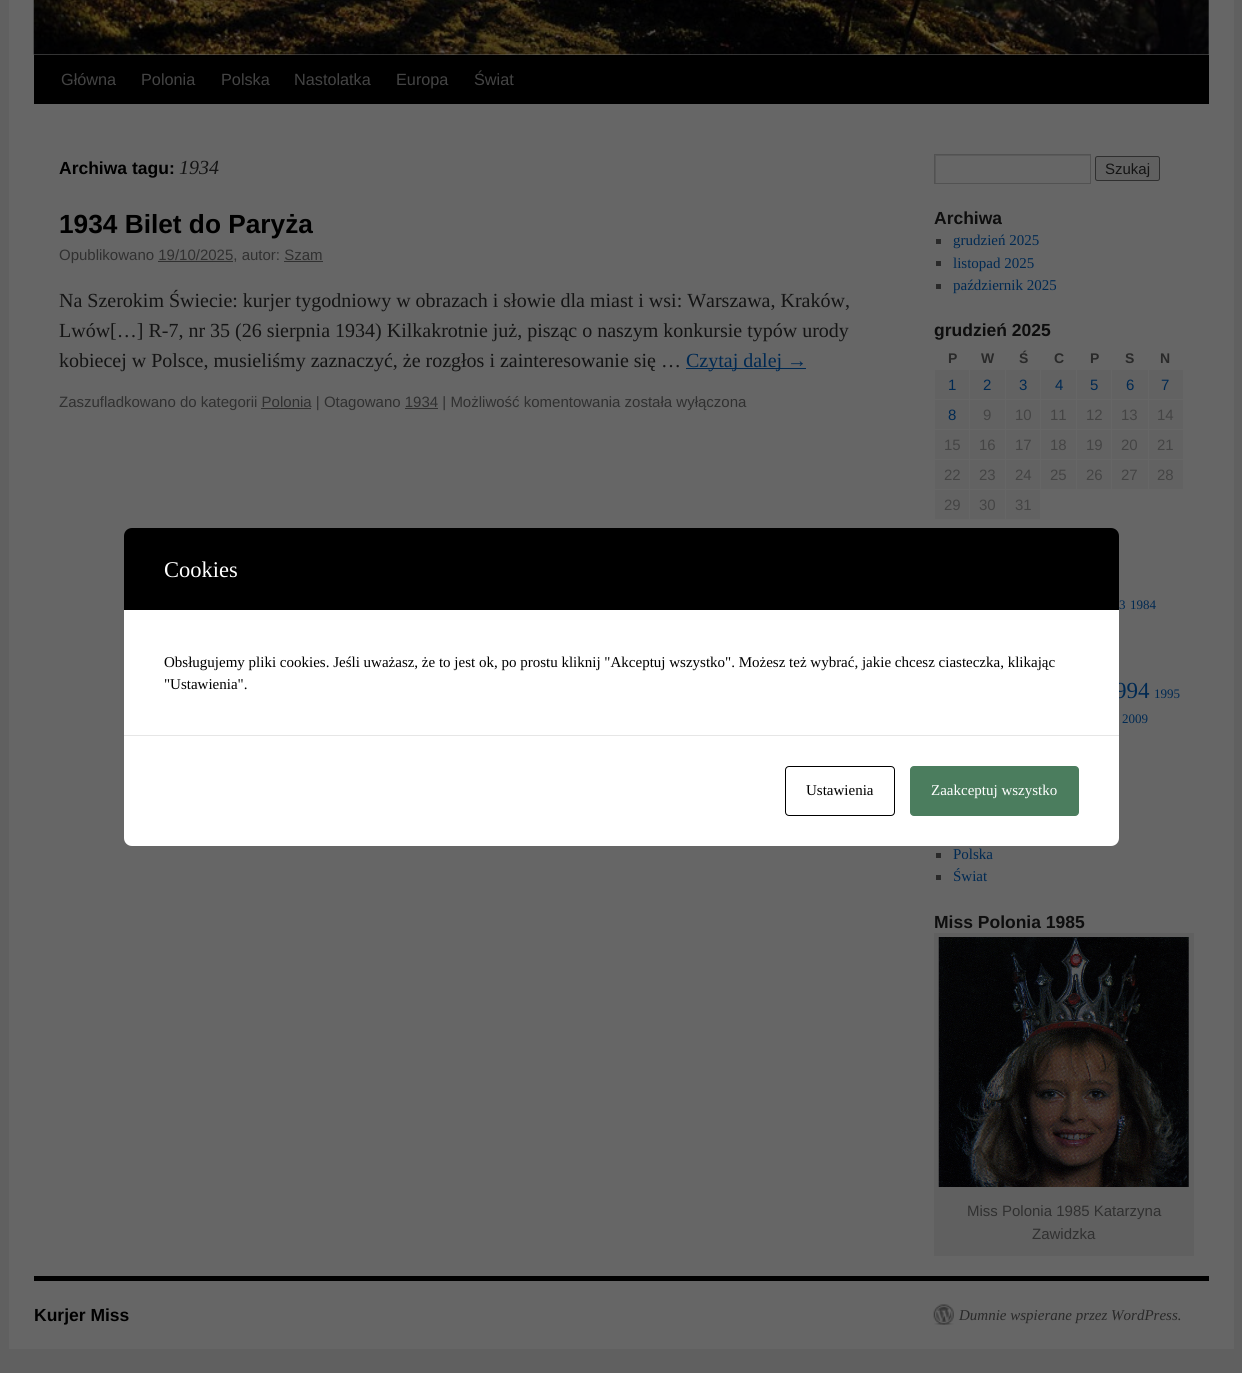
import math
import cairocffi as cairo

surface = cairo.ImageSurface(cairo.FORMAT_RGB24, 1242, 1373)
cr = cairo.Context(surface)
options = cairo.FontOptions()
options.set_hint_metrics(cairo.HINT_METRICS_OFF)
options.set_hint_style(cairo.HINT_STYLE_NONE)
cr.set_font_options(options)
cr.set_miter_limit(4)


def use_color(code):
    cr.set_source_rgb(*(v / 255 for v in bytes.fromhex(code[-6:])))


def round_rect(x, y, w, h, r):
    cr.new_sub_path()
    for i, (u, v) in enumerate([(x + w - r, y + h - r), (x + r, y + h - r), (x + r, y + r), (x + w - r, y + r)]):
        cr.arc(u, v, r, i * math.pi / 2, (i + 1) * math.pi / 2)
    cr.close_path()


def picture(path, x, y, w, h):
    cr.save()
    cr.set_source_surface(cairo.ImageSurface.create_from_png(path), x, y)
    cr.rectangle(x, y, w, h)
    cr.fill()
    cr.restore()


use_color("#606060")
cr.paint()
use_color("#666666")
cr.rectangle(9, 0, 1225, 1349)
cr.fill()
use_color("#000000")
cr.rectangle(34, 55, 1175, 49)
cr.fill()
picture("img1.png", 33, 0, 1176, 55)
cr.select_font_face("Liberation Sans")
cr.set_font_size(16.25)
use_color("#444444")
cr.move_to(61, 85)
cr.show_text("Główna")
cr.move_to(141, 85)
cr.show_text("Polonia")
cr.move_to(221, 85)
cr.show_text("Polska")
cr.move_to(294, 85)
cr.show_text("Nastolatka")
cr.move_to(396, 85)
cr.show_text("Europa")
cr.move_to(474, 85)
cr.show_text("Świat")
cr.select_font_face("Liberation Sans", cairo.FONT_SLANT_NORMAL, cairo.FONT_WEIGHT_BOLD)
cr.set_font_size(17.5)
use_color("#000000")
cr.move_to(59, 174)
cr.show_text("Archiwa tagu:")
cr.select_font_face("Liberation Serif", cairo.FONT_SLANT_ITALIC)
cr.set_font_size(20)
use_color("#141414")
cr.move_to(179, 174)
cr.show_text("1934")
cr.select_font_face("Liberation Sans", cairo.FONT_SLANT_NORMAL, cairo.FONT_WEIGHT_BOLD)
cr.set_font_size(26.25)
use_color("#000000")
cr.move_to(59, 233)
cr.show_text("1934 Bilet do Paryża")
cr.select_font_face("Liberation Sans")
cr.set_font_size(15)
use_color("#303030")
cr.move_to(59, 260)
cr.show_text("Opublikowano 19/10/2025, autor: Szam")
cr.rectangle(158, 261, 75, 1)
cr.fill()
cr.rectangle(284, 261, 39, 1)
cr.fill()
cr.select_font_face("Liberation Serif")
cr.set_font_size(20)
use_color("#141414")
cr.move_to(59, 307)
cr.show_text("Na Szerokim Świecie: kurjer tygodniowy w obrazach i słowie dla miast i wsi: Warszawa, Kraków,")
cr.move_to(59, 337)
cr.show_text("Lwów[…] R-7, nr 35 (26 sierpnia 1934) Kilkakrotnie już, pisząc o naszym konkursie typów urody")
cr.move_to(59, 367)
cr.show_text("kobiecej w Polsce, musieliśmy zaznaczyć, że rozgłos i zainteresowanie się …")
use_color("#002952")
cr.rectangle(686, 368, 120, 1)
cr.fill()
cr.move_to(686, 367)
cr.show_text("Czytaj dalej →")
cr.select_font_face("Liberation Sans")
cr.set_font_size(15)
use_color("#303030")
cr.move_to(59, 407)
cr.show_text("Zaszufladkowano do kategorii Polonia | Otagowano 1934 | Możliwość komentowania została wyłączona")
cr.rectangle(261, 408, 50, 1)
cr.fill()
cr.rectangle(405, 408, 33, 1)
cr.fill()
cr.save()
cr.rectangle(935, 155, 155, 28)
cr.clip()
use_color("#5a5a5a")
cr.set_fill_rule(cairo.FILL_RULE_EVEN_ODD)
cr.new_path()
cr.move_to(811, 31)
cr.line_to(1214, 31)
cr.line_to(1214, 306)
cr.line_to(811, 306)
cr.close_path()
cr.move_to(936, 156)
cr.line_to(1091, 156)
cr.line_to(1091, 184)
cr.line_to(936, 184)
cr.close_path()
cr.fill()
cr.restore()
cr.rectangle(934.5, 154.5, 156, 29)
use_color("#525252")
cr.set_line_width(1)
cr.stroke()
use_color("#606060")
round_rect(1095.5, 156.5, 64, 24, 2)
cr.fill_preserve()
use_color("#2f2f2f")
cr.stroke()
use_color("#141414")
cr.move_to(1105, 174)
cr.show_text("Szukaj")
cr.select_font_face("Liberation Sans", cairo.FONT_SLANT_NORMAL, cairo.FONT_WEIGHT_BOLD)
cr.set_font_size(17.5)
use_color("#0e0e0e")
cr.move_to(934, 224)
cr.show_text("Archiwa")
use_color("#292929")
cr.rectangle(936, 239, 5, 5)
cr.fill()
cr.select_font_face("Liberation Serif")
cr.set_font_size(15)
use_color("#002952")
cr.move_to(953, 245)
cr.show_text("grudzień 2025")
use_color("#292929")
cr.rectangle(936, 261, 5, 5)
cr.fill()
use_color("#002952")
cr.move_to(953, 268)
cr.show_text("listopad 2025")
use_color("#292929")
cr.rectangle(936, 284, 5, 5)
cr.fill()
use_color("#002952")
cr.move_to(953, 290)
cr.show_text("październik 2025")
cr.select_font_face("Liberation Sans", cairo.FONT_SLANT_NORMAL, cairo.FONT_WEIGHT_BOLD)
cr.set_font_size(17.5)
use_color("#0e0e0e")
cr.move_to(934, 336)
cr.show_text("grudzień 2025")
cr.set_font_size(14)
use_color("#292929")
cr.move_to(948, 363)
cr.show_text("P")
cr.move_to(981, 363)
cr.show_text("W")
cr.move_to(1019, 363)
cr.show_text("Ś")
cr.move_to(1054, 363)
cr.show_text("C")
cr.move_to(1090, 363)
cr.show_text("P")
cr.move_to(1125, 363)
cr.show_text("S")
cr.move_to(1160, 363)
cr.show_text("N")
use_color("#626262")
cr.rectangle(935, 370, 34, 29)
cr.fill()
cr.select_font_face("Liberation Sans")
cr.set_font_size(15)
use_color("#002952")
cr.move_to(948, 390)
cr.show_text("1")
use_color("#626262")
cr.rectangle(970, 370, 35, 29)
cr.fill()
use_color("#002952")
cr.move_to(983, 390)
cr.show_text("2")
use_color("#626262")
cr.rectangle(1006, 370, 34, 29)
cr.fill()
use_color("#002952")
cr.move_to(1019, 390)
cr.show_text("3")
use_color("#626262")
cr.rectangle(1041, 370, 35, 29)
cr.fill()
use_color("#002952")
cr.move_to(1055, 390)
cr.show_text("4")
use_color("#626262")
cr.rectangle(1077, 370, 71, 29)
cr.fill()
use_color("#002952")
cr.move_to(1090, 390)
cr.show_text("5")
cr.move_to(1126, 390)
cr.show_text("6")
use_color("#626262")
cr.rectangle(1149, 370, 34, 29)
cr.fill()
use_color("#002952")
cr.move_to(1161, 390)
cr.show_text("7")
use_color("#626262")
cr.rectangle(935, 400, 34, 29)
cr.fill()
use_color("#002952")
cr.move_to(948, 420)
cr.show_text("8")
use_color("#626262")
cr.rectangle(970, 400, 35, 29)
cr.fill()
use_color("#444444")
cr.move_to(983, 420)
cr.show_text("9")
use_color("#626262")
cr.rectangle(1006, 400, 34, 29)
cr.fill()
use_color("#444444")
cr.move_to(1015, 420)
cr.show_text("10")
use_color("#626262")
cr.rectangle(1041, 400, 35, 29)
cr.fill()
use_color("#444444")
cr.move_to(1050, 420)
cr.show_text("11")
use_color("#626262")
cr.rectangle(1077, 400, 71, 29)
cr.fill()
use_color("#444444")
cr.move_to(1086, 420)
cr.show_text("12")
cr.move_to(1121, 420)
cr.show_text("13")
use_color("#626262")
cr.rectangle(1149, 400, 34, 29)
cr.fill()
use_color("#444444")
cr.move_to(1157, 420)
cr.show_text("14")
use_color("#626262")
cr.rectangle(935, 430, 34, 29)
cr.fill()
use_color("#444444")
cr.move_to(944, 450)
cr.show_text("15")
use_color("#626262")
cr.rectangle(970, 430, 35, 29)
cr.fill()
use_color("#444444")
cr.move_to(979, 450)
cr.show_text("16")
use_color("#626262")
cr.rectangle(1006, 430, 34, 29)
cr.fill()
use_color("#444444")
cr.move_to(1015, 450)
cr.show_text("17")
use_color("#626262")
cr.rectangle(1041, 430, 35, 29)
cr.fill()
use_color("#444444")
cr.move_to(1050, 450)
cr.show_text("18")
use_color("#626262")
cr.rectangle(1077, 430, 71, 29)
cr.fill()
use_color("#444444")
cr.move_to(1086, 450)
cr.show_text("19")
cr.move_to(1121, 450)
cr.show_text("20")
use_color("#626262")
cr.rectangle(1149, 430, 34, 29)
cr.fill()
use_color("#444444")
cr.move_to(1157, 450)
cr.show_text("21")
use_color("#626262")
cr.rectangle(935, 460, 34, 29)
cr.fill()
use_color("#444444")
cr.move_to(944, 480)
cr.show_text("22")
use_color("#626262")
cr.rectangle(970, 460, 35, 29)
cr.fill()
use_color("#444444")
cr.move_to(979, 480)
cr.show_text("23")
use_color("#626262")
cr.rectangle(1006, 460, 34, 29)
cr.fill()
use_color("#444444")
cr.move_to(1015, 480)
cr.show_text("24")
use_color("#626262")
cr.rectangle(1041, 460, 35, 29)
cr.fill()
use_color("#444444")
cr.move_to(1050, 480)
cr.show_text("25")
use_color("#626262")
cr.rectangle(1077, 460, 71, 29)
cr.fill()
use_color("#444444")
cr.move_to(1086, 480)
cr.show_text("26")
use_color("#666666")
cr.rectangle(1111, 369, 1, 121)
cr.fill()
use_color("#444444")
cr.move_to(1121, 480)
cr.show_text("27")
use_color("#626262")
cr.rectangle(1149, 460, 34, 29)
cr.fill()
use_color("#444444")
cr.move_to(1157, 480)
cr.show_text("28")
use_color("#626262")
cr.rectangle(935, 490, 34, 29)
cr.fill()
use_color("#444444")
cr.move_to(944, 510)
cr.show_text("29")
use_color("#626262")
cr.rectangle(970, 490, 35, 29)
cr.fill()
use_color("#444444")
cr.move_to(979, 510)
cr.show_text("30")
use_color("#626262")
cr.rectangle(1006, 490, 34, 29)
cr.fill()
use_color("#444444")
cr.move_to(1015, 510)
cr.show_text("31")
cr.select_font_face("Liberation Serif")
cr.set_font_size(13)
use_color("#002952")
cr.move_to(1119, 609)
cr.show_text("3")
cr.move_to(1130, 609)
cr.show_text("1984")
cr.set_font_size(23)
cr.move_to(1115, 698)
cr.show_text("994")
cr.set_font_size(13)
cr.move_to(1154, 698)
cr.show_text("1995")
cr.move_to(1122, 723)
cr.show_text("2009")
use_color("#292929")
cr.rectangle(936, 853, 5, 5)
cr.fill()
cr.set_font_size(15)
use_color("#002952")
cr.move_to(953, 859)
cr.show_text("Polska")
use_color("#292929")
cr.rectangle(936, 875, 5, 5)
cr.fill()
use_color("#002952")
cr.move_to(953, 881)
cr.show_text("Świat")
cr.select_font_face("Liberation Sans", cairo.FONT_SLANT_NORMAL, cairo.FONT_WEIGHT_BOLD)
cr.set_font_size(17.5)
use_color("#0e0e0e")
cr.move_to(934, 928)
cr.show_text("Miss Polonia 1985")
use_color("#606060")
cr.rectangle(934, 933, 260, 323)
cr.fill()
picture("img2.png", 938, 937, 251, 250)
cr.select_font_face("Liberation Sans")
cr.set_font_size(15)
use_color("#303030")
cr.move_to(967, 1216)
cr.show_text("Miss Polonia 1985 Katarzyna")
cr.move_to(1032, 1239)
cr.show_text("Zawidzka")
use_color("#000000")
cr.rectangle(34, 1276, 1175, 5)
cr.fill()
cr.select_font_face("Liberation Sans", cairo.FONT_SLANT_NORMAL, cairo.FONT_WEIGHT_BOLD)
cr.set_font_size(17.5)
cr.move_to(34, 1321)
cr.show_text("Kurjer Miss")
picture("img3.png", 933, 1304, 21, 21)
cr.select_font_face("Liberation Serif", cairo.FONT_SLANT_ITALIC)
cr.set_font_size(15)
use_color("#292929")
cr.move_to(959, 1320)
cr.show_text("Dumnie wspierane przez WordPress.")
use_color("#000000")
cr.new_path()
cr.move_to(132, 528)
cr.line_to(1111, 528)
cr.curve_to(1115.5, 528, 1119, 531.5, 1119, 536)
cr.line_to(1119, 610)
cr.line_to(124, 610)
cr.line_to(124, 536)
cr.curve_to(124, 531.5, 127.5, 528, 132, 528)
cr.close_path()
cr.fill()
cr.select_font_face("Liberation Serif")
cr.set_font_size(22.5)
use_color("#ffffff")
cr.move_to(164, 577)
cr.show_text("Cookies")
cr.rectangle(124, 610, 995, 125)
cr.fill()
cr.set_font_size(15)
use_color("#000000")
cr.move_to(164, 667)
cr.show_text("Obsługujemy pliki cookies. Jeśli uważasz, że to jest ok, po prostu kliknij \"Akceptuj wszystko\". Możesz też wybrać, jakie chcesz ciasteczka, klikając")
cr.move_to(164, 689)
cr.show_text("\"Ustawienia\".")
use_color("#ffffff")
cr.new_path()
cr.move_to(124, 735)
cr.line_to(1119, 735)
cr.line_to(1119, 838)
cr.curve_to(1119, 842.5, 1115.5, 846, 1111, 846)
cr.line_to(132, 846)
cr.curve_to(127.5, 846, 124, 842.5, 124, 838)
cr.close_path()
cr.fill()
use_color("#e6e6e6")
cr.rectangle(124, 735, 995, 1)
cr.fill()
round_rect(785.5, 766.5, 109, 49, 3.5)
use_color("#000000")
cr.stroke()
cr.move_to(806, 795)
cr.show_text("Ustawienia")
use_color("#4b7d5e")
round_rect(910.5, 766.5, 168, 49, 3.5)
cr.fill_preserve()
cr.stroke()
use_color("#ffffff")
cr.move_to(931, 795)
cr.show_text("Zaakceptuj wszystko")
surface.write_to_png("result.png")
